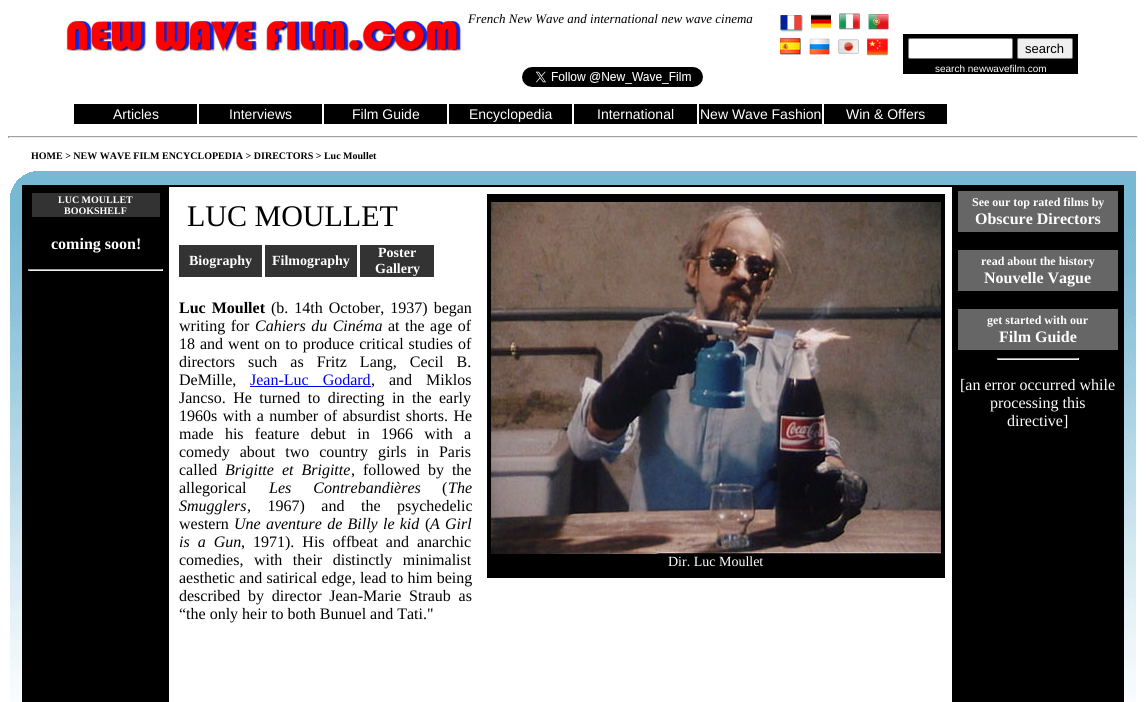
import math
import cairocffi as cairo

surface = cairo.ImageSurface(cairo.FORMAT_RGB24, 1146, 702)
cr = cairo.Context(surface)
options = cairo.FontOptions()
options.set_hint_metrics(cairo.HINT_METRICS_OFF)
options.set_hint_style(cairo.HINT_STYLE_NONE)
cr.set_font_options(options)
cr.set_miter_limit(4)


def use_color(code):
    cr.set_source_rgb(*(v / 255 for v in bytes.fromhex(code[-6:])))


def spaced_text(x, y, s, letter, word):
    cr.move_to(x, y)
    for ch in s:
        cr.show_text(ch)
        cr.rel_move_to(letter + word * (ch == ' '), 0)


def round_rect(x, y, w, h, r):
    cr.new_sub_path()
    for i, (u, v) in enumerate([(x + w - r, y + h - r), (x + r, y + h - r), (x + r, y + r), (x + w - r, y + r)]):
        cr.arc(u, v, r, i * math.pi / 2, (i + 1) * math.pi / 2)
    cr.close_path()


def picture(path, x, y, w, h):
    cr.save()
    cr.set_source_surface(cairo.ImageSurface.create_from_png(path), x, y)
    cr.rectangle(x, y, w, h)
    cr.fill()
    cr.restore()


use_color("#ffffff")
cr.paint()
picture("img1.png", 64, 16, 400, 37)
cr.select_font_face("Liberation Serif", cairo.FONT_SLANT_ITALIC)
cr.set_font_size(13)
use_color("#000000")
cr.move_to(468, 23)
cr.show_text("French New Wave and international new wave cinema")
picture("img2.png", 780, 15, 23, 17)
picture("img3.png", 811, 14, 20, 15)
picture("img4.png", 839, 13, 21, 17)
picture("img5.png", 868, 14, 21, 16)
picture("img6.png", 780, 38, 21, 17)
picture("img7.png", 809, 38, 21, 17)
picture("img8.png", 838, 39, 21, 15)
picture("img9.png", 867, 38, 21, 18)
cr.rectangle(903, 34, 175, 40)
cr.fill()
use_color("#ffffff")
round_rect(908.5, 38.5, 104, 20, 1.5)
cr.fill_preserve()
use_color("#767676")
cr.set_line_width(1)
cr.stroke()
use_color("#efefef")
round_rect(1017.5, 38.5, 55, 20, 1.5)
cr.fill_preserve()
use_color("#767676")
cr.stroke()
cr.select_font_face("Liberation Sans")
use_color("#000000")
cr.move_to(1025, 53)
cr.show_text("search")
cr.set_font_size(10)
use_color("#ffffff")
cr.move_to(935, 72)
cr.show_text("search newwavefilm.com")
picture("img10.png", 522, 67, 181, 20)
use_color("#000000")
cr.rectangle(74, 104, 123, 20)
cr.fill()
cr.set_font_size(14)
use_color("#ffffff")
cr.move_to(113, 119)
cr.show_text("Articles")
use_color("#000000")
cr.rectangle(199, 104, 123, 20)
cr.fill()
use_color("#ffffff")
cr.move_to(229, 119)
cr.show_text("Interviews")
use_color("#000000")
cr.rectangle(324, 104, 123, 20)
cr.fill()
use_color("#ffffff")
cr.move_to(352, 119)
cr.show_text("Film Guide")
use_color("#000000")
cr.rectangle(449, 104, 123, 20)
cr.fill()
use_color("#ffffff")
cr.move_to(469, 119)
cr.show_text("Encyclopedia")
use_color("#000000")
cr.rectangle(574, 104, 123, 20)
cr.fill()
use_color("#ffffff")
cr.move_to(597, 119)
cr.show_text("International")
use_color("#000000")
cr.rectangle(699, 104, 123, 20)
cr.fill()
use_color("#ffffff")
cr.move_to(700, 119)
cr.show_text("New Wave Fashion")
use_color("#000000")
cr.rectangle(824, 104, 123, 20)
cr.fill()
use_color("#ffffff")
cr.move_to(846, 119)
cr.show_text("Win & Offers")
use_color("#9f9f9f")
cr.rectangle(8, 136, 1130, 1)
cr.fill()
use_color("#eeeeee")
cr.rectangle(1137, 136, 1, 2)
cr.fill()
cr.rectangle(8, 137, 1130, 1)
cr.fill()
use_color("#9f9f9f")
cr.rectangle(8, 136, 1, 2)
cr.fill()
cr.select_font_face("Liberation Serif", cairo.FONT_SLANT_NORMAL, cairo.FONT_WEIGHT_BOLD)
cr.set_font_size(10)
use_color("#000000")
cr.move_to(31, 159)
cr.show_text("HOME > NEW WAVE FILM ENCYCLOPEDIA > DIRECTORS > Luc Moullet")
picture("img11.png", 10, 171, 1126, 531)
cr.rectangle(22, 185, 1102, 517)
cr.fill()
use_color("#333333")
cr.rectangle(32, 193, 128, 24)
cr.fill()
use_color("#ffffff")
cr.move_to(58, 203)
cr.show_text("LUC MOULLET")
cr.move_to(64, 214)
cr.show_text("BOOKSHELF")
cr.set_font_size(16)
cr.move_to(51, 249)
cr.show_text("coming soon!")
use_color("#9f9f9f")
cr.rectangle(28, 269, 135, 1)
cr.fill()
use_color("#eeeeee")
cr.rectangle(162, 269, 1, 2)
cr.fill()
cr.rectangle(28, 270, 135, 1)
cr.fill()
use_color("#9f9f9f")
cr.rectangle(28, 269, 1, 2)
cr.fill()
use_color("#ffffff")
cr.rectangle(169, 187, 783, 515)
cr.fill()
cr.select_font_face("Liberation Serif")
cr.set_font_size(30)
use_color("#000000")
cr.move_to(187, 226)
cr.show_text("LUC MOULLET")
use_color("#333333")
cr.rectangle(179, 245, 83, 32)
cr.fill()
cr.select_font_face("Liberation Serif", cairo.FONT_SLANT_NORMAL, cairo.FONT_WEIGHT_BOLD)
cr.set_font_size(14)
use_color("#ffffff")
cr.move_to(189, 265)
cr.show_text("Biography")
use_color("#333333")
cr.rectangle(265, 245, 92, 32)
cr.fill()
use_color("#ffffff")
cr.move_to(272, 265)
cr.show_text("Filmography")
use_color("#333333")
cr.rectangle(360, 245, 74, 32)
cr.fill()
use_color("#ffffff")
cr.move_to(378, 257)
cr.show_text("Poster")
cr.move_to(375, 273)
cr.show_text("Gallery")
cr.set_font_size(16)
use_color("#000000")
spaced_text(179, 313, "Luc Moullet", 0, 2)
cr.select_font_face("Liberation Serif")
spaced_text(271, 313, "(b. 14th October, 1937) began", 0, 2)
spaced_text(179, 331, "writing for", 0, 1.5)
cr.select_font_face("Liberation Serif", cairo.FONT_SLANT_ITALIC)
spaced_text(255, 331, "Cahiers du Cinéma", 0, 1.5)
cr.select_font_face("Liberation Serif")
spaced_text(388, 331, "at the age of", 0, 1.5)
spaced_text(179, 349, "18 and went on to produce critical studies of", 0, 1)
spaced_text(179, 367, "directors such as Fritz Lang, Cecil B.", 0, 9)
cr.move_to(179, 385)
cr.show_text("DeMille,")
use_color("#0000ee")
spaced_text(250, 385, "Jean-Luc Godard", 0, 10)
cr.rectangle(250, 386, 121, 1)
cr.fill()
use_color("#000000")
spaced_text(371, 385, ", and Miklos", 0, 10)
spaced_text(179, 403, "Jancso. He turned to directing in the early", 0, 3.5)
spaced_text(179, 421, "1960s with a number of absurdist shorts. He", 0, 1.5)
spaced_text(179, 439, "made his feature debut in 1966 with a", 0, 7.25)
spaced_text(179, 457, "comedy about two country girls in Paris", 0, 6)
cr.move_to(179, 475)
cr.show_text("called")
cr.select_font_face("Liberation Serif", cairo.FONT_SLANT_ITALIC)
spaced_text(225, 475, "Brigitte et Brigitte", 0, 4)
cr.select_font_face("Liberation Serif")
spaced_text(351, 475, ", followed by the", 0, 4)
cr.move_to(179, 493)
cr.show_text("allegorical")
cr.select_font_face("Liberation Serif", cairo.FONT_SLANT_ITALIC)
spaced_text(269, 493, "Les Contrebandières", 0, 18)
cr.select_font_face("Liberation Serif")
cr.move_to(442, 493)
cr.show_text("(")
cr.select_font_face("Liberation Serif", cairo.FONT_SLANT_ITALIC)
cr.move_to(448, 493)
cr.show_text("The")
cr.move_to(179, 511)
cr.show_text("Smugglers")
cr.select_font_face("Liberation Serif")
spaced_text(247, 511, ", 1967) and the psychedelic", 0, 12.5)
cr.move_to(179, 529)
cr.show_text("western")
cr.select_font_face("Liberation Serif", cairo.FONT_SLANT_ITALIC)
spaced_text(234, 529, "Une aventure de Billy le kid", 0, 1.25)
cr.select_font_face("Liberation Serif")
cr.move_to(425, 529)
cr.show_text("(")
cr.select_font_face("Liberation Serif", cairo.FONT_SLANT_ITALIC)
spaced_text(430, 529, "A Girl", 0, 1.25)
spaced_text(179, 547, "is a Gun", 0, 4)
cr.select_font_face("Liberation Serif")
spaced_text(241, 547, ", 1971). His offbeat and anarchic", 0, 4)
spaced_text(179, 565, "comedies, with their distinctly minimalist", 0, 6.5)
spaced_text(179, 583, "aesthetic and satirical edge, lead to him being", 0, 0.25)
spaced_text(179, 601, "described by director Jean-Marie Straub as", 0, 3.75)
cr.move_to(179, 619)
cr.show_text("“the only heir to both Bunuel and Tati.\"")
cr.rectangle(487, 194, 458, 384)
cr.fill()
picture("img12.png", 491, 202, 450, 352)
cr.set_font_size(14)
use_color("#ffffff")
cr.move_to(668, 566)
cr.show_text("Dir. Luc Moullet")
use_color("#666666")
cr.rectangle(958, 191, 160, 41)
cr.fill()
cr.select_font_face("Liberation Serif", cairo.FONT_SLANT_NORMAL, cairo.FONT_WEIGHT_BOLD)
cr.set_font_size(12)
use_color("#ffffff")
cr.move_to(972, 206)
cr.show_text("See our top rated films by")
cr.set_font_size(16)
cr.move_to(975, 224)
cr.show_text("Obscure Directors")
use_color("#666666")
cr.rectangle(958, 250, 160, 41)
cr.fill()
cr.set_font_size(12)
use_color("#ffffff")
cr.move_to(981, 265)
cr.show_text("read about the history")
cr.set_font_size(16)
cr.move_to(984, 283)
cr.show_text("Nouvelle Vague")
use_color("#666666")
cr.rectangle(958, 309, 160, 41)
cr.fill()
cr.set_font_size(12)
use_color("#ffffff")
cr.move_to(987, 324)
cr.show_text("get started with our")
cr.set_font_size(16)
cr.move_to(999, 342)
cr.show_text("Film Guide")
use_color("#9f9f9f")
cr.rectangle(997, 358, 82, 1)
cr.fill()
use_color("#eeeeee")
cr.rectangle(1078, 358, 1, 2)
cr.fill()
cr.rectangle(997, 359, 82, 1)
cr.fill()
use_color("#9f9f9f")
cr.rectangle(997, 358, 1, 2)
cr.fill()
cr.select_font_face("Liberation Serif")
use_color("#ffffff")
cr.move_to(960, 390)
cr.show_text("[an error occurred while")
cr.move_to(990, 408)
cr.show_text("processing this")
cr.move_to(1007, 426)
cr.show_text("directive]")
surface.write_to_png("result.png")
